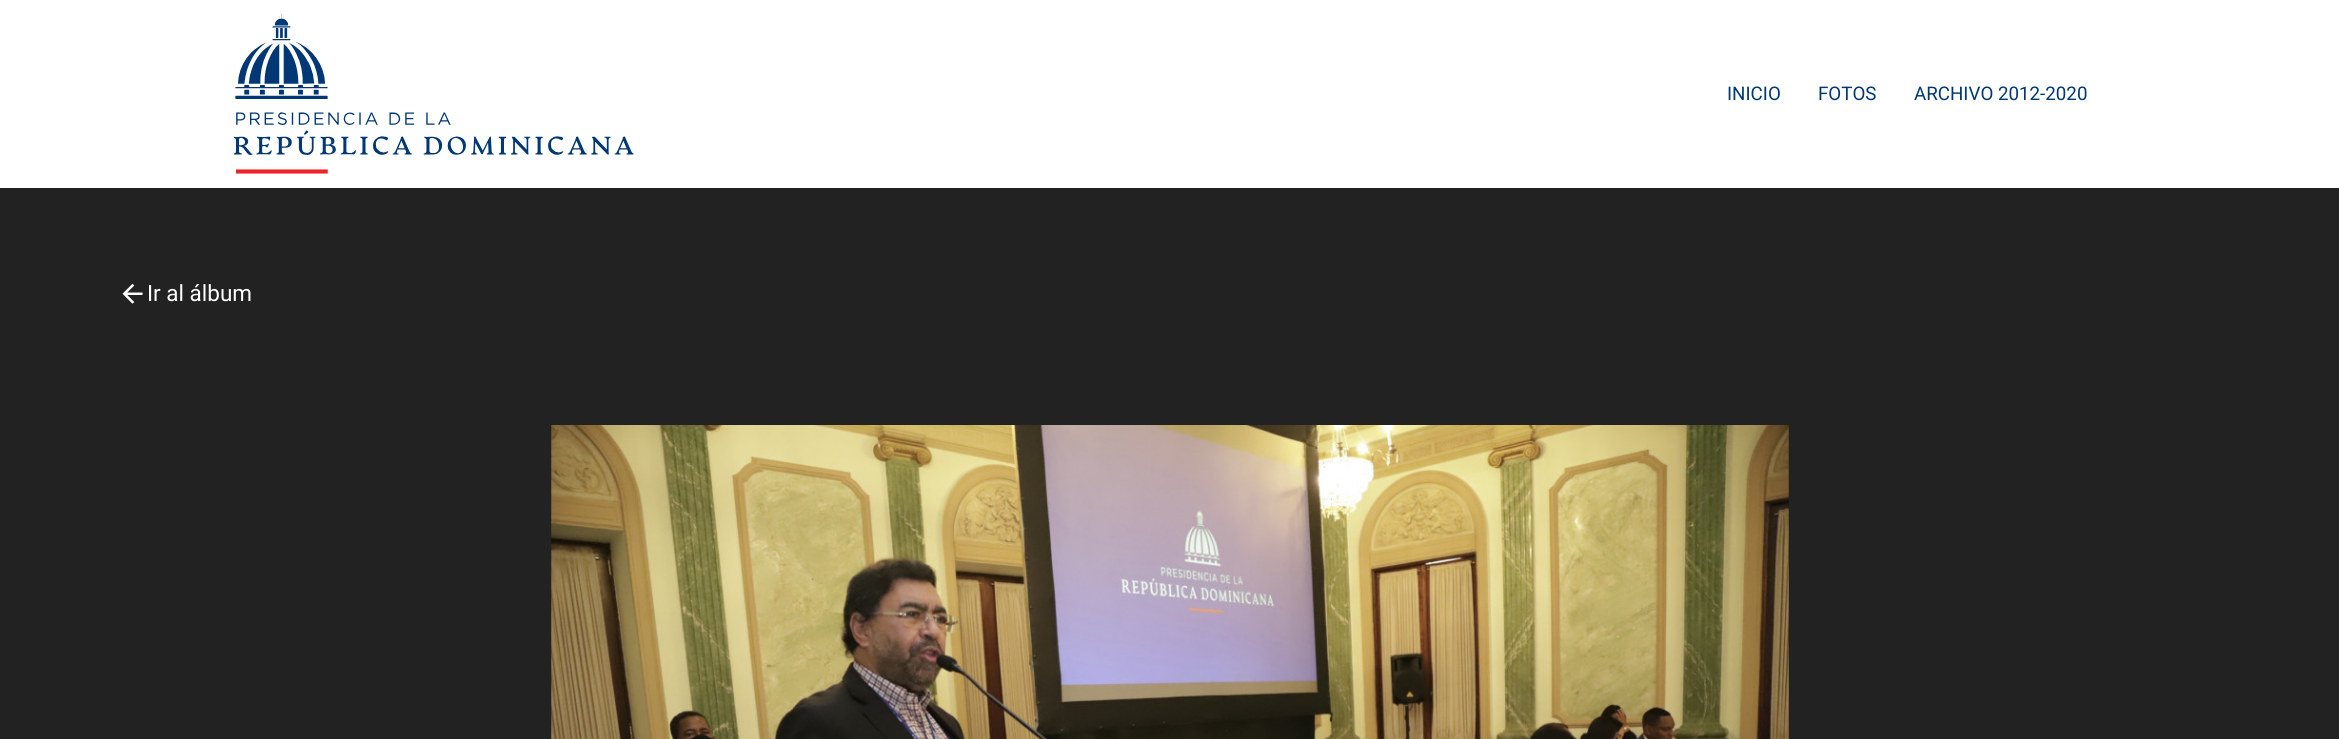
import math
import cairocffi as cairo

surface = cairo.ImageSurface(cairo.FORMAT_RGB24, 2339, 739)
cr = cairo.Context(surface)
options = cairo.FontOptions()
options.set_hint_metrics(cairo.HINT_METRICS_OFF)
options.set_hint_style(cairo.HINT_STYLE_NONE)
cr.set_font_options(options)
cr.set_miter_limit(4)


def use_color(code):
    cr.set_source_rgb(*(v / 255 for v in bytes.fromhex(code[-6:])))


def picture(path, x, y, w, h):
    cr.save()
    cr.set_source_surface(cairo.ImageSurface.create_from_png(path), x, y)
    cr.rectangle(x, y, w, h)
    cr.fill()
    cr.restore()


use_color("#ffffff")
cr.paint()
picture("img1.png", 234, 14, 400, 160)
cr.select_font_face("Roboto")
cr.set_font_size(18.75)
use_color("#003876")
cr.move_to(1727, 100)
cr.show_text("INICIO")
cr.move_to(1818, 100)
cr.show_text("FOTOS")
cr.move_to(1914, 100)
cr.show_text("ARCHIVO 2012-2020")
use_color("#222222")
cr.rectangle(0, 188, 2339, 551)
cr.fill()
picture("img2.png", 122, 283, 21, 21)
cr.set_font_size(22.5)
use_color("#ffffff")
cr.move_to(147, 301)
cr.show_text("Ir al álbum")
picture("img3.png", 551, 425, 1238, 314)
surface.write_to_png("result.png")
